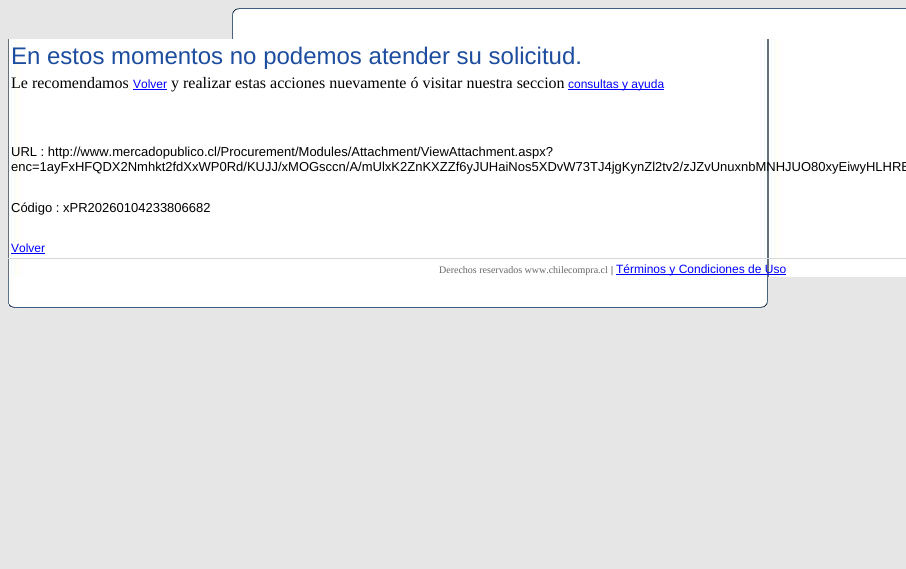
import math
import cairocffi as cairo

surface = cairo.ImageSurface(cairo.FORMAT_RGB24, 906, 569)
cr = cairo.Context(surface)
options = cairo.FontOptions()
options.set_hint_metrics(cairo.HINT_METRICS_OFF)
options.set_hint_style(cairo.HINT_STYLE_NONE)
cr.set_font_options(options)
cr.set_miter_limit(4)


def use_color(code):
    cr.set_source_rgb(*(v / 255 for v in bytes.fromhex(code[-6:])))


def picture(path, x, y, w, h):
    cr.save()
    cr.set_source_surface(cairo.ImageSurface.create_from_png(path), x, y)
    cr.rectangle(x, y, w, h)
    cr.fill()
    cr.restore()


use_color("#e6e6e6")
cr.paint()
picture("img1.png", 232, 8, 674, 31)
picture("img2.png", 8, 39, 898, 219)
cr.select_font_face("Liberation Sans")
cr.set_font_size(24)
use_color("#1d4d9e")
cr.move_to(11, 64)
cr.show_text("En estos momentos no podemos atender su solicitud.")
cr.select_font_face("Liberation Serif")
cr.set_font_size(16)
use_color("#000000")
cr.move_to(11, 88)
cr.show_text("Le recomendamos")
cr.select_font_face("Liberation Sans")
cr.set_font_size(12)
use_color("#0000ff")
cr.move_to(133, 88)
cr.show_text("Volver")
cr.rectangle(133, 89, 34, 1)
cr.fill()
cr.select_font_face("Liberation Serif")
cr.set_font_size(16)
use_color("#000000")
cr.move_to(171, 88)
cr.show_text("y realizar estas acciones nuevamente ó visitar nuestra seccion")
use_color("#0000ff")
cr.rectangle(568, 89, 96, 1)
cr.fill()
cr.select_font_face("Liberation Sans")
cr.set_font_size(12)
cr.move_to(568, 88)
cr.show_text("consultas y ayuda")
cr.set_font_size(13)
use_color("#000000")
cr.move_to(11, 156)
cr.show_text("URL : http://www.mercadopublico.cl/Procurement/Modules/Attachment/ViewAttachment.aspx?")
cr.move_to(11, 171)
cr.show_text("enc=1ayFxHFQDX2Nmhkt2fdXxWP0Rd/KUJJ/xMOGsccn/A/mUlxK2ZnKXZZf6yJUHaiNos5XDvW73TJ4jgKynZl2tv2/zJZvUnuxnbMNHJUO80xyEiwyHLHRB")
cr.move_to(11, 212)
cr.show_text("Código : xPR20260104233806682")
cr.set_font_size(12)
use_color("#0000ff")
cr.move_to(11, 252)
cr.show_text("Volver")
cr.rectangle(11, 253, 34, 1)
cr.fill()
use_color("#d7d7d7")
cr.rectangle(8, 258, 898, 1)
cr.fill()
use_color("#ffffff")
cr.rectangle(780, 259, 126, 18)
cr.fill()
picture("img3.png", 8, 259, 772, 18)
cr.select_font_face("Liberation Serif")
cr.set_font_size(10)
use_color("#666666")
cr.move_to(439, 273)
cr.show_text("Derechos reservados www.chilecompra.cl")
use_color("#000000")
cr.move_to(611, 273)
cr.show_text("|")
use_color("#0000ff")
cr.rectangle(616, 274, 170, 1)
cr.fill()
cr.select_font_face("Liberation Sans")
cr.set_font_size(12)
cr.move_to(616, 273)
cr.show_text("Términos y Condiciones de Uso")
picture("img4.png", 8, 277, 760, 31)
surface.write_to_png("result.png")
